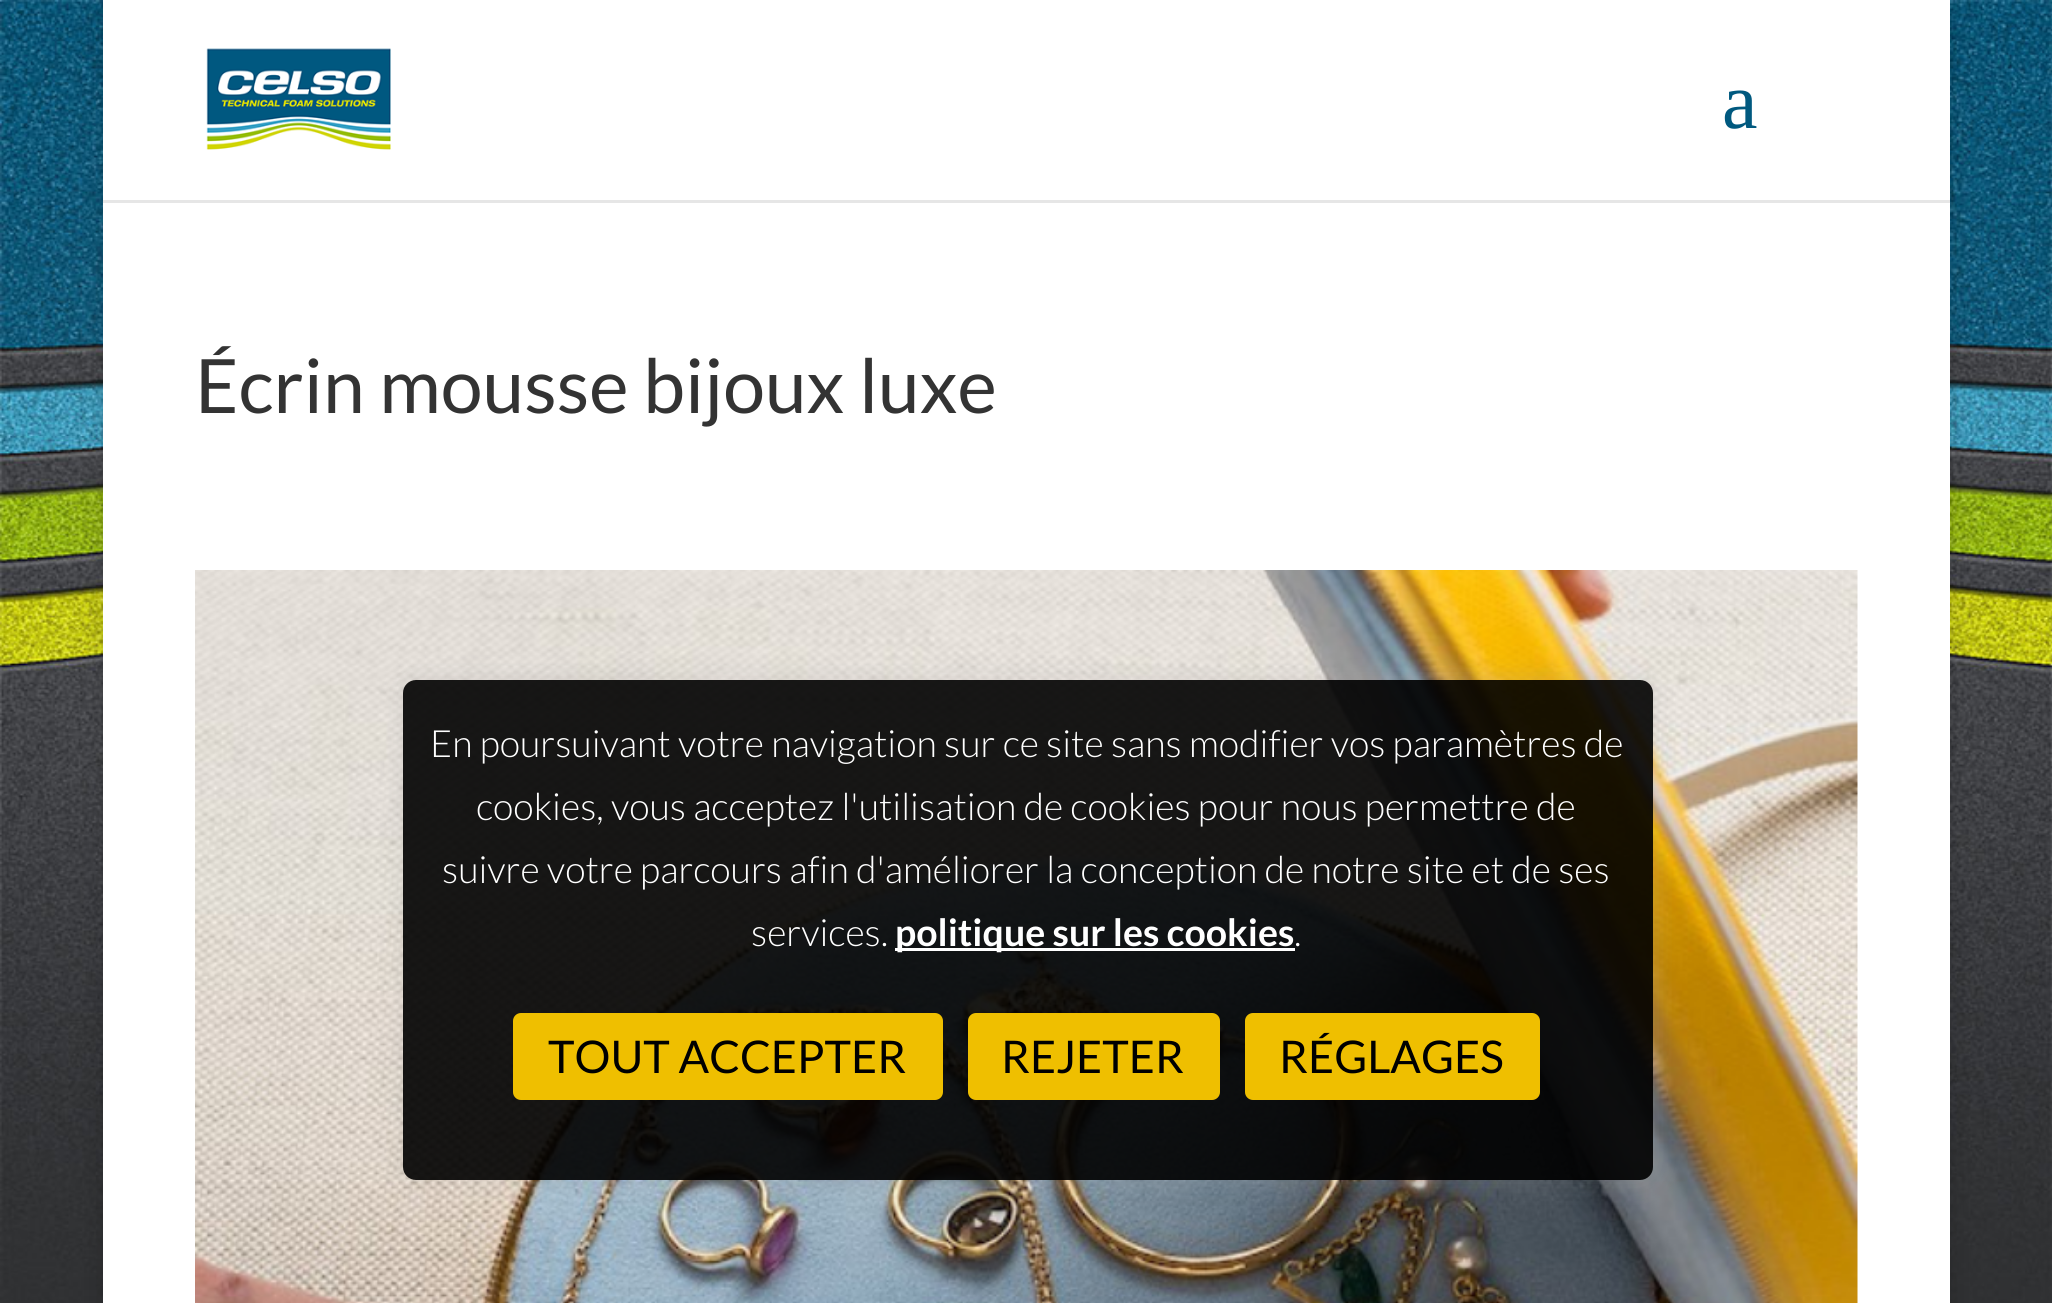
import math
import cairocffi as cairo

surface = cairo.ImageSurface(cairo.FORMAT_RGB24, 2052, 1303)
cr = cairo.Context(surface)
options = cairo.FontOptions()
options.set_hint_metrics(cairo.HINT_METRICS_OFF)
options.set_hint_style(cairo.HINT_STYLE_NONE)
cr.set_font_options(options)
cr.set_miter_limit(4)


def use_color(code):
    cr.set_source_rgb(*(v / 255 for v in bytes.fromhex(code[-6:])))


def round_rect(x, y, w, h, r):
    cr.new_sub_path()
    for i, (u, v) in enumerate([(x + w - r, y + h - r), (x + r, y + h - r), (x + r, y + r), (x + w - r, y + r)]):
        cr.arc(u, v, r, i * math.pi / 2, (i + 1) * math.pi / 2)
    cr.close_path()


def shadow(x, y, w, h, r, blur, alpha):
    cr.push_group_with_content(cairo.CONTENT_ALPHA)
    cr.set_operator(cairo.OPERATOR_SOURCE)
    for i in range(15, -16, -2):
        e = blur * i / 6
        if min(w, h) + 2 * e > 0:
            cr.set_source_rgba(0, 0, 0, alpha * math.erfc((i - 1) / 8.5) / 2)
            round_rect(x - e, y - e, w + 2 * e, h + 2 * e, max(0, min(r + e + blur * .6, min(w, h) / 2 + e)))
            cr.fill()
    cr.mask(cr.pop_group())


def picture(path, x, y, w, h):
    cr.save()
    cr.set_source_surface(cairo.ImageSurface.create_from_png(path), x, y)
    cr.rectangle(x, y, w, h)
    cr.fill()
    cr.restore()


use_color("#ffffff")
cr.paint()
picture("img1.png", 0, 0, 2052, 1303)
use_color("#000000")
shadow(103, 0, 1847, 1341, 0, 12.5, 0.2)
use_color("#ffffff")
cr.rectangle(103, 0, 1847, 1303)
cr.fill()
use_color("#e6e6e6")
cr.rectangle(103, 200, 1847, 3)
cr.fill()
picture("img2.png", 206, 48, 185, 102)
cr.select_font_face("Liberation Serif")
cr.set_font_size(80)
use_color("#00597f")
cr.move_to(1722, 128)
cr.show_text("a")
cr.select_font_face("Lato")
cr.set_font_size(75)
use_color("#333333")
cr.move_to(195, 413)
cr.show_text("Écrin mousse bijoux luxe")
picture("img3.png", 195, 570, 1663, 733)
cr.save()
cr.set_fill_rule(cairo.FILL_RULE_EVEN_ODD)
cr.new_path()
cr.move_to(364, 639)
cr.line_to(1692, 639)
cr.line_to(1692, 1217)
cr.line_to(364, 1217)
cr.close_path()
cr.move_to(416, 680)
cr.line_to(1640, 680)
cr.curve_to(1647, 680, 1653, 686, 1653, 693)
cr.line_to(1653, 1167)
cr.curve_to(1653, 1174, 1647, 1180, 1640, 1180)
cr.line_to(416, 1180)
cr.curve_to(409, 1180, 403, 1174, 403, 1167)
cr.line_to(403, 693)
cr.curve_to(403, 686, 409, 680, 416, 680)
cr.close_path()
cr.clip()
use_color("#acabab")
shadow(403, 678, 1250, 500, 13, 12.5, 0.3)
cr.restore()
cr.set_source_rgba(0, 0, 0, 0.9)
round_rect(403, 680, 1250, 500, 13)
cr.fill()
cr.select_font_face("Lato Light")
cr.set_font_size(37.5)
use_color("#ffffff")
cr.move_to(430, 757)
cr.show_text("En poursuivant votre navigation sur ce site sans modifier vos paramètres de")
cr.move_to(476, 820)
cr.show_text("cookies, vous acceptez l'utilisation de cookies pour nous permettre de")
cr.move_to(442, 883)
cr.show_text("suivre votre parcours afin d'améliorer la conception de notre site et de ses")
cr.move_to(751, 946)
cr.show_text("services.")
cr.rectangle(895, 948, 400, 3)
cr.fill()
cr.select_font_face("Lato", cairo.FONT_SLANT_NORMAL, cairo.FONT_WEIGHT_BOLD)
cr.move_to(895, 946)
cr.show_text("politique sur les cookies")
cr.select_font_face("Lato Light")
cr.move_to(1294, 946)
cr.show_text(".")
use_color("#efbf00")
round_rect(513, 1013, 430, 87, 8)
cr.fill()
cr.select_font_face("Lato")
cr.set_font_size(45)
use_color("#000000")
cr.move_to(548, 1073)
cr.show_text("TOUT ACCEPTER")
use_color("#efbf00")
round_rect(968, 1013, 252, 87, 8)
cr.fill()
use_color("#000000")
cr.move_to(1001, 1073)
cr.show_text("REJETER")
use_color("#efbf00")
round_rect(1245, 1013, 295, 87, 8)
cr.fill()
use_color("#000000")
cr.move_to(1279, 1073)
cr.show_text("RÉGLAGES")
surface.write_to_png("result.png")
